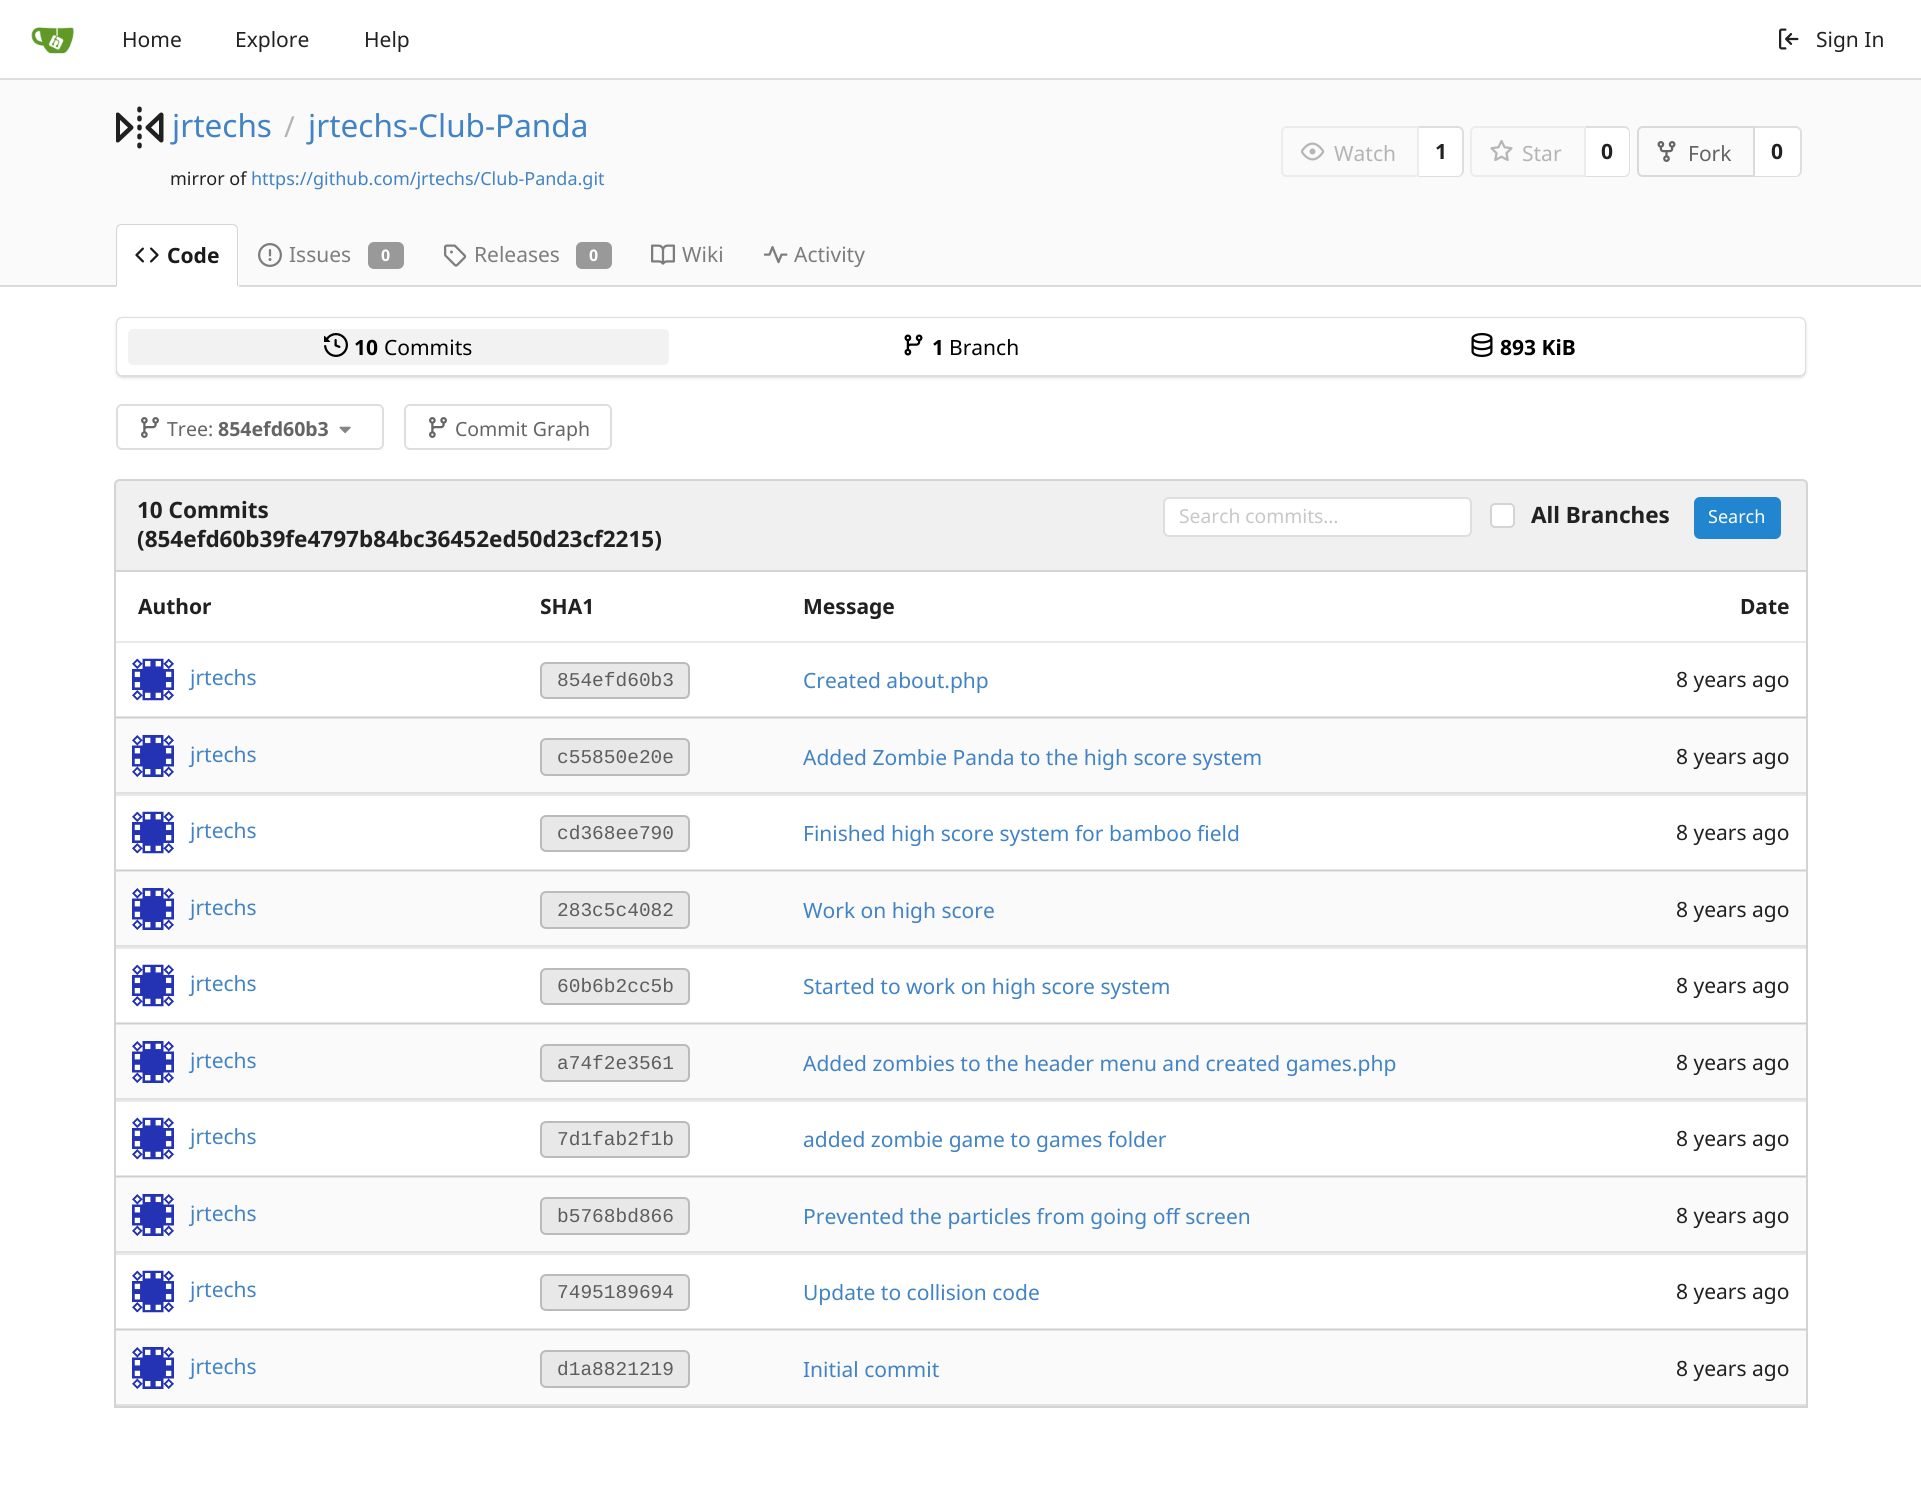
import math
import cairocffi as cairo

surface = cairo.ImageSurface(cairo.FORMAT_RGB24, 1921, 1490)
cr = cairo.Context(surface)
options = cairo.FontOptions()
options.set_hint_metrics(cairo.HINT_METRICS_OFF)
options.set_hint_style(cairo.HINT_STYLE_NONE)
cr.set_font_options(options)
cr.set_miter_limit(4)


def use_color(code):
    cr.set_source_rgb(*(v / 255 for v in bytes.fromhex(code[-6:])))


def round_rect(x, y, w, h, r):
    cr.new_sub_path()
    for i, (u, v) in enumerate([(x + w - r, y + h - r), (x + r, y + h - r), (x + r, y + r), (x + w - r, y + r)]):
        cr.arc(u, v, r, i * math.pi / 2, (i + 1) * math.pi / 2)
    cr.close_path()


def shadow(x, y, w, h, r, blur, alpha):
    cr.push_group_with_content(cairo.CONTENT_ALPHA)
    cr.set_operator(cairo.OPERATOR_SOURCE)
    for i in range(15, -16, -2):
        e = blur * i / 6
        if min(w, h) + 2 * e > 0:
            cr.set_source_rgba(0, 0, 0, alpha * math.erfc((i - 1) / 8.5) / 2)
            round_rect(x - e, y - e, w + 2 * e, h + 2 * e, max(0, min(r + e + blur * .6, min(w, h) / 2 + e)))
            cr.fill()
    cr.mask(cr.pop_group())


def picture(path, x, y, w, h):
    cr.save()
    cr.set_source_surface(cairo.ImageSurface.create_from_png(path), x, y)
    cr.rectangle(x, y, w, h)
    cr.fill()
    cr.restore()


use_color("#ffffff")
cr.paint()
use_color("#fafafa")
cr.rectangle(116, 1331, 1690, 73)
cr.fill()
use_color("#e4e5e5")
cr.rectangle(116, 1330, 1690, 1)
cr.fill()
use_color("#fafafa")
cr.rectangle(116, 1178, 1690, 73)
cr.fill()
use_color("#e4e5e5")
cr.rectangle(116, 1177, 1690, 1)
cr.fill()
use_color("#fafafa")
cr.rectangle(116, 1025, 1690, 73)
cr.fill()
use_color("#e4e5e5")
cr.rectangle(116, 1024, 1690, 1)
cr.fill()
use_color("#fafafa")
cr.rectangle(116, 872, 1690, 73)
cr.fill()
use_color("#e4e5e5")
cr.rectangle(116, 871, 1690, 1)
cr.fill()
use_color("#fafafa")
cr.rectangle(116, 719, 1690, 73)
cr.fill()
use_color("#e4e5e5")
cr.rectangle(116, 718, 1690, 1)
cr.fill()
use_color("#dddddd")
cr.rectangle(0, 78, 1921, 2)
cr.fill()
picture("img1.png", 31, 27, 43, 27)
cr.select_font_face("Noto Sans")
cr.set_font_size(21)
use_color("#212121")
cr.move_to(122, 47)
cr.show_text("Home")
cr.move_to(235, 47)
cr.show_text("Explore")
cr.move_to(364, 47)
cr.show_text("Help")
picture("img2.png", 1779, 28, 20, 22)
cr.move_to(1816, 47)
cr.show_text("Sign In")
use_color("#fafafa")
cr.rectangle(0, 80, 1921, 205)
cr.fill()
picture("img3.png", 116, 106, 48, 43)
cr.set_font_size(31.5)
use_color("#4183c4")
cr.move_to(172, 137)
cr.show_text("jrtechs")
cr.set_font_size(29)
use_color("#b4b4b4")
cr.move_to(284, 137)
cr.show_text("/")
cr.set_font_size(31.5)
use_color("#4183c4")
cr.move_to(308, 137)
cr.show_text("jrtechs-Club-Panda")
cr.set_font_size(18)
use_color("#212121")
cr.move_to(170, 185)
cr.show_text("mirror of")
use_color("#4183c4")
cr.move_to(251, 185)
cr.show_text("https://github.com/jrtechs/Club-Panda.git")
cr.new_path()
cr.move_to(1287, 127)
cr.line_to(1418, 127)
cr.line_to(1418, 176)
cr.line_to(1287, 176)
cr.curve_to(1284, 176, 1282, 174, 1282, 171)
cr.line_to(1282, 132)
cr.curve_to(1282, 129, 1284, 127, 1287, 127)
cr.close_path()
use_color("#ebecec")
cr.stroke()
picture("img4.png", 1301, 142, 24, 19)
cr.set_font_size(21)
use_color("#b4b4b4")
cr.move_to(1334, 161)
cr.show_text("Watch")
use_color("#ffffff")
cr.new_path()
cr.move_to(1419, 126)
cr.line_to(1458, 126)
cr.curve_to(1461.5, 126, 1464, 128.5, 1464, 132)
cr.line_to(1464, 171)
cr.curve_to(1464, 174.5, 1461.5, 177, 1458, 177)
cr.line_to(1419, 177)
cr.close_path()
cr.fill()
use_color("#dedede")
cr.set_fill_rule(cairo.FILL_RULE_EVEN_ODD)
cr.new_path()
cr.move_to(1419, 126)
cr.line_to(1458, 126)
cr.curve_to(1461, 126, 1464, 129, 1464, 132)
cr.line_to(1464, 171)
cr.curve_to(1464, 174, 1461, 177, 1458, 177)
cr.line_to(1419, 177)
cr.close_path()
cr.move_to(1419, 128)
cr.line_to(1458, 128)
cr.curve_to(1460, 128, 1462, 130, 1462, 132)
cr.line_to(1462, 171)
cr.curve_to(1462, 173, 1460, 176, 1458, 176)
cr.line_to(1419, 176)
cr.close_path()
cr.fill()
cr.select_font_face("Noto Sans", cairo.FONT_SLANT_NORMAL, cairo.FONT_WEIGHT_BOLD)
use_color("#212121")
cr.move_to(1435, 159)
cr.show_text("1")
cr.new_path()
cr.move_to(1476, 127)
cr.line_to(1585, 127)
cr.line_to(1585, 176)
cr.line_to(1476, 176)
cr.curve_to(1473, 176, 1471, 174, 1471, 171)
cr.line_to(1471, 132)
cr.curve_to(1471, 129, 1473, 127, 1476, 127)
cr.close_path()
use_color("#ebecec")
cr.stroke()
picture("img5.png", 1490, 140, 23, 21)
cr.select_font_face("Noto Sans")
use_color("#b4b4b4")
cr.move_to(1522, 161)
cr.show_text("Star")
use_color("#ffffff")
cr.new_path()
cr.move_to(1586, 126)
cr.line_to(1625, 126)
cr.curve_to(1628.5, 126, 1631, 128.5, 1631, 132)
cr.line_to(1631, 171)
cr.curve_to(1631, 174.5, 1628.5, 177, 1625, 177)
cr.line_to(1586, 177)
cr.close_path()
cr.fill()
use_color("#dedede")
cr.new_path()
cr.move_to(1586, 126)
cr.line_to(1624, 126)
cr.curve_to(1628, 126, 1630, 129, 1630, 132)
cr.line_to(1630, 171)
cr.curve_to(1630, 174, 1628, 177, 1624, 177)
cr.line_to(1586, 177)
cr.close_path()
cr.move_to(1586, 128)
cr.line_to(1624, 128)
cr.curve_to(1627, 128, 1629, 130, 1629, 132)
cr.line_to(1629, 171)
cr.curve_to(1629, 173, 1627, 176, 1624, 176)
cr.line_to(1586, 176)
cr.close_path()
cr.fill()
cr.select_font_face("Noto Sans", cairo.FONT_SLANT_NORMAL, cairo.FONT_WEIGHT_BOLD)
use_color("#212121")
cr.move_to(1601, 159)
cr.show_text("0")
cr.new_path()
cr.move_to(1643, 127)
cr.line_to(1754, 127)
cr.line_to(1754, 176)
cr.line_to(1643, 176)
cr.curve_to(1640, 176, 1638, 174, 1638, 171)
cr.line_to(1638, 132)
cr.curve_to(1638, 129, 1640, 127, 1643, 127)
cr.close_path()
use_color("#dadada")
cr.stroke()
picture("img6.png", 1657, 141, 19, 21)
cr.select_font_face("Noto Sans")
use_color("#646464")
cr.move_to(1688, 161)
cr.show_text("Fork")
use_color("#ffffff")
cr.new_path()
cr.move_to(1755, 126)
cr.line_to(1796, 126)
cr.curve_to(1799.5, 126, 1802, 128.5, 1802, 132)
cr.line_to(1802, 171)
cr.curve_to(1802, 174.5, 1799.5, 177, 1796, 177)
cr.line_to(1755, 177)
cr.close_path()
cr.fill()
use_color("#dedede")
cr.new_path()
cr.move_to(1755, 126)
cr.line_to(1796, 126)
cr.curve_to(1799, 126, 1802, 129, 1802, 132)
cr.line_to(1802, 171)
cr.curve_to(1802, 174, 1799, 177, 1796, 177)
cr.line_to(1755, 177)
cr.close_path()
cr.move_to(1755, 128)
cr.line_to(1796, 128)
cr.curve_to(1798, 128, 1800, 130, 1800, 132)
cr.line_to(1800, 171)
cr.curve_to(1800, 173, 1798, 176, 1796, 176)
cr.line_to(1755, 176)
cr.close_path()
cr.fill()
cr.select_font_face("Noto Sans", cairo.FONT_SLANT_NORMAL, cairo.FONT_WEIGHT_BOLD)
use_color("#212121")
cr.move_to(1771, 159)
cr.show_text("0")
use_color("#dadada")
cr.rectangle(0, 285, 1921, 2)
cr.fill()
use_color("#ffffff")
cr.new_path()
cr.move_to(122, 224)
cr.line_to(233, 224)
cr.curve_to(236.5, 224, 239, 226.5, 239, 230)
cr.line_to(239, 287)
cr.line_to(116, 287)
cr.line_to(116, 230)
cr.curve_to(116, 226.5, 118.5, 224, 122, 224)
cr.close_path()
cr.fill()
use_color("#d4d4d5")
cr.new_path()
cr.move_to(122, 224)
cr.line_to(232, 224)
cr.curve_to(236, 224, 238, 226, 238, 230)
cr.line_to(238, 286)
cr.line_to(116, 286)
cr.line_to(116, 230)
cr.curve_to(116, 226, 118, 224, 122, 224)
cr.close_path()
cr.move_to(122, 225)
cr.line_to(232, 225)
cr.curve_to(235, 225, 237, 227, 237, 230)
cr.line_to(237, 286)
cr.line_to(117, 286)
cr.line_to(117, 230)
cr.curve_to(117, 227, 119, 225, 122, 225)
cr.close_path()
cr.fill()
picture("img7.png", 135, 247, 24, 16)
use_color("#1a1a1a")
cr.move_to(167, 263)
cr.show_text("Code")
picture("img8.png", 258, 243, 24, 24)
cr.select_font_face("Noto Sans")
use_color("#7d7d7d")
cr.move_to(289, 262)
cr.show_text("Issues")
use_color("#999999")
round_rect(368, 242, 36, 27, 6)
cr.fill()
cr.select_font_face("Noto Sans", cairo.FONT_SLANT_NORMAL, cairo.FONT_WEIGHT_BOLD)
cr.set_font_size(16)
use_color("#ffffff")
cr.move_to(381, 261)
cr.show_text("0")
picture("img9.png", 444, 244, 23, 23)
cr.select_font_face("Noto Sans")
cr.set_font_size(21)
use_color("#7d7d7d")
cr.move_to(474, 262)
cr.show_text("Releases")
use_color("#999999")
round_rect(576, 242, 36, 27, 6)
cr.fill()
cr.select_font_face("Noto Sans", cairo.FONT_SLANT_NORMAL, cairo.FONT_WEIGHT_BOLD)
cr.set_font_size(16)
use_color("#ffffff")
cr.move_to(589, 261)
cr.show_text("0")
picture("img10.png", 651, 244, 24, 21)
cr.select_font_face("Noto Sans")
cr.set_font_size(21)
use_color("#7d7d7d")
cr.move_to(682, 262)
cr.show_text("Wiki")
picture("img11.png", 764, 246, 24, 18)
cr.move_to(794, 262)
cr.show_text("Activity")
cr.save()
cr.new_path()
cr.move_to(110, 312)
cr.line_to(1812, 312)
cr.line_to(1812, 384)
cr.line_to(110, 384)
cr.close_path()
cr.move_to(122, 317)
cr.line_to(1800, 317)
cr.curve_to(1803.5, 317, 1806, 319.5, 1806, 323)
cr.line_to(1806, 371)
cr.curve_to(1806, 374.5, 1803.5, 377, 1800, 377)
cr.line_to(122, 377)
cr.curve_to(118.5, 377, 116, 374.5, 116, 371)
cr.line_to(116, 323)
cr.curve_to(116, 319.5, 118.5, 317, 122, 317)
cr.close_path()
cr.clip()
use_color("#222426")
shadow(116, 318, 1690, 60, 6, 1.5, 0.15)
cr.restore()
round_rect(117, 318, 1688, 58, 5)
cr.set_source_rgba(0.133, 0.141, 0.149, 0.15)
cr.stroke()
use_color("#ffffff")
round_rect(117, 318, 1688, 57, 6)
cr.fill()
use_color("#f2f2f2")
round_rect(128, 329, 541, 36, 5)
cr.fill()
picture("img12.png", 324, 333, 24, 24)
cr.select_font_face("Noto Sans", cairo.FONT_SLANT_NORMAL, cairo.FONT_WEIGHT_BOLD)
use_color("#000000")
cr.move_to(354, 355)
cr.show_text("10")
cr.select_font_face("Noto Sans")
cr.move_to(384, 355)
cr.show_text("Commits")
picture("img13.png", 904, 334, 19, 22)
cr.select_font_face("Noto Sans", cairo.FONT_SLANT_NORMAL, cairo.FONT_WEIGHT_BOLD)
cr.move_to(932, 355)
cr.show_text("1")
cr.select_font_face("Noto Sans")
cr.move_to(949, 355)
cr.show_text("Branch")
picture("img14.png", 1471, 333, 22, 24)
cr.select_font_face("Noto Sans", cairo.FONT_SLANT_NORMAL, cairo.FONT_WEIGHT_BOLD)
cr.move_to(1500, 355)
cr.show_text("893 KiB")
round_rect(117, 405, 266, 44, 5)
use_color("#dedede")
cr.stroke()
picture("img15.png", 141, 417, 18, 21)
cr.select_font_face("Noto Sans")
cr.set_font_size(19.5)
use_color("#646464")
cr.move_to(167, 436)
cr.show_text("Tree:")
cr.select_font_face("Noto Sans", cairo.FONT_SLANT_NORMAL, cairo.FONT_WEIGHT_BOLD)
cr.move_to(218, 436)
cr.show_text("854efd60b3")
picture("img16.png", 339, 426, 12, 8)
round_rect(405, 405, 206, 44, 5)
use_color("#dedede")
cr.stroke()
picture("img15.png", 429, 417, 18, 21)
cr.select_font_face("Noto Sans")
use_color("#646464")
cr.move_to(455, 436)
cr.show_text("Commit Graph")
use_color("#f0f0f0")
cr.new_path()
cr.move_to(120, 480)
cr.line_to(1802, 480)
cr.curve_to(1805, 480, 1807, 482, 1807, 485)
cr.line_to(1807, 571)
cr.line_to(115, 571)
cr.line_to(115, 485)
cr.curve_to(115, 482, 117, 480, 120, 480)
cr.close_path()
cr.fill_preserve()
use_color("#d4d4d5")
cr.stroke()
cr.select_font_face("Noto Sans", cairo.FONT_SLANT_NORMAL, cairo.FONT_WEIGHT_BOLD)
cr.set_font_size(22.5)
use_color("#212121")
cr.move_to(137, 518)
cr.show_text("10 Commits")
cr.move_to(137, 547)
cr.show_text("(854efd60b39fe4797b84bc36452ed50d23cf2215)")
use_color("#ffffff")
round_rect(1163, 497, 309, 40, 6)
cr.fill()
round_rect(1164, 498, 307, 38, 5)
cr.set_source_rgba(0.133, 0.141, 0.149, 0.15)
cr.stroke()
cr.select_font_face("Noto Sans")
cr.set_font_size(19.25)
use_color("#c7c7c7")
cr.move_to(1179, 523)
cr.show_text("Search commits…")
use_color("#ffffff")
round_rect(1491, 504, 23, 23, 4)
cr.fill_preserve()
use_color("#d4d4d5")
cr.stroke()
cr.select_font_face("Noto Sans", cairo.FONT_SLANT_NORMAL, cairo.FONT_WEIGHT_BOLD)
cr.set_font_size(22.5)
use_color("#212121")
cr.move_to(1531, 523)
cr.show_text("All Branches")
use_color("#2185d0")
round_rect(1694, 497, 87, 42, 6)
cr.fill()
cr.select_font_face("Noto Sans")
cr.set_font_size(18)
use_color("#ffffff")
cr.move_to(1708, 523)
cr.show_text("Search")
use_color("#d4d4d5")
cr.rectangle(1806, 572, 2, 835)
cr.fill()
cr.rectangle(114, 1406, 1694, 2)
cr.fill()
cr.rectangle(114, 572, 2, 835)
cr.fill()
use_color("#e9e9e9")
cr.rectangle(116, 641, 1690, 2)
cr.fill()
cr.select_font_face("Noto Sans", cairo.FONT_SLANT_NORMAL, cairo.FONT_WEIGHT_BOLD)
cr.set_font_size(21)
use_color("#212121")
cr.move_to(138, 614)
cr.show_text("Author")
cr.move_to(540, 614)
cr.show_text("SHA1")
cr.move_to(803, 614)
cr.show_text("Message")
cr.move_to(1740, 614)
cr.show_text("Date")
use_color("#e6e6e6")
cr.rectangle(116, 716, 1690, 1)
cr.fill()
use_color("#cecece")
cr.rectangle(116, 717, 1690, 1)
cr.fill()
picture("img17.png", 132, 658, 42, 43)
cr.select_font_face("Noto Sans")
use_color("#4183c4")
cr.move_to(190, 685)
cr.show_text("jrtechs")
use_color("#e8e8e8")
round_rect(541, 663, 148, 35, 5)
cr.fill_preserve()
use_color("#bbbbbb")
cr.stroke()
cr.select_font_face("Liberation Mono")
cr.set_font_size(19.5)
use_color("#5d5d5d")
cr.move_to(557, 686)
cr.show_text("854efd60b3")
cr.select_font_face("Noto Sans")
cr.set_font_size(21)
use_color("#4183c4")
cr.move_to(803, 688)
cr.show_text("Created about.php")
use_color("#212121")
cr.move_to(1676, 687)
cr.show_text("8 years ago")
use_color("#e1e1e1")
cr.rectangle(116, 792, 1690, 2)
cr.fill()
picture("img18.png", 132, 735, 42, 42)
use_color("#4183c4")
cr.move_to(190, 762)
cr.show_text("jrtechs")
use_color("#e8e8e8")
round_rect(541, 739, 148, 36, 5)
cr.fill_preserve()
use_color("#bbbbbb")
cr.stroke()
cr.select_font_face("Liberation Mono")
cr.set_font_size(19.5)
use_color("#5d5d5d")
cr.move_to(557, 763)
cr.show_text("c55850e20e")
cr.select_font_face("Noto Sans")
cr.set_font_size(21)
use_color("#4183c4")
cr.move_to(803, 765)
cr.show_text("Added Zombie Panda to the high score system")
use_color("#212121")
cr.move_to(1676, 764)
cr.show_text("8 years ago")
use_color("#e6e6e6")
cr.rectangle(116, 869, 1690, 1)
cr.fill()
use_color("#cecece")
cr.rectangle(116, 870, 1690, 1)
cr.fill()
use_color("#e9e9e9")
cr.rectangle(116, 794, 1690, 2)
cr.fill()
picture("img17.png", 132, 811, 42, 43)
use_color("#4183c4")
cr.move_to(190, 838)
cr.show_text("jrtechs")
use_color("#e8e8e8")
round_rect(541, 816, 148, 35, 5)
cr.fill_preserve()
use_color("#bbbbbb")
cr.stroke()
cr.select_font_face("Liberation Mono")
cr.set_font_size(19.5)
use_color("#5d5d5d")
cr.move_to(557, 839)
cr.show_text("cd368ee790")
cr.select_font_face("Noto Sans")
cr.set_font_size(21)
use_color("#4183c4")
cr.move_to(803, 841)
cr.show_text("Finished high score system for bamboo field")
use_color("#212121")
cr.move_to(1676, 840)
cr.show_text("8 years ago")
use_color("#e1e1e1")
cr.rectangle(116, 945, 1690, 2)
cr.fill()
picture("img18.png", 132, 888, 42, 42)
use_color("#4183c4")
cr.move_to(190, 915)
cr.show_text("jrtechs")
use_color("#e8e8e8")
round_rect(541, 892, 148, 36, 5)
cr.fill_preserve()
use_color("#bbbbbb")
cr.stroke()
cr.select_font_face("Liberation Mono")
cr.set_font_size(19.5)
use_color("#5d5d5d")
cr.move_to(557, 916)
cr.show_text("283c5c4082")
cr.select_font_face("Noto Sans")
cr.set_font_size(21)
use_color("#4183c4")
cr.move_to(803, 918)
cr.show_text("Work on high score")
use_color("#212121")
cr.move_to(1676, 917)
cr.show_text("8 years ago")
use_color("#e6e6e6")
cr.rectangle(116, 1022, 1690, 1)
cr.fill()
use_color("#cecece")
cr.rectangle(116, 1023, 1690, 1)
cr.fill()
use_color("#e9e9e9")
cr.rectangle(116, 947, 1690, 2)
cr.fill()
picture("img17.png", 132, 964, 42, 43)
use_color("#4183c4")
cr.move_to(190, 991)
cr.show_text("jrtechs")
use_color("#e8e8e8")
round_rect(541, 969, 148, 35, 5)
cr.fill_preserve()
use_color("#bbbbbb")
cr.stroke()
cr.select_font_face("Liberation Mono")
cr.set_font_size(19.5)
use_color("#5d5d5d")
cr.move_to(557, 992)
cr.show_text("60b6b2cc5b")
cr.select_font_face("Noto Sans")
cr.set_font_size(21)
use_color("#4183c4")
cr.move_to(803, 994)
cr.show_text("Started to work on high score system")
use_color("#212121")
cr.move_to(1676, 993)
cr.show_text("8 years ago")
use_color("#e1e1e1")
cr.rectangle(116, 1098, 1690, 2)
cr.fill()
picture("img18.png", 132, 1041, 42, 42)
use_color("#4183c4")
cr.move_to(190, 1068)
cr.show_text("jrtechs")
use_color("#e8e8e8")
round_rect(541, 1045, 148, 36, 5)
cr.fill_preserve()
use_color("#bbbbbb")
cr.stroke()
cr.select_font_face("Liberation Mono")
cr.set_font_size(19.5)
use_color("#5d5d5d")
cr.move_to(557, 1069)
cr.show_text("a74f2e3561")
cr.select_font_face("Noto Sans")
cr.set_font_size(21)
use_color("#4183c4")
cr.move_to(803, 1071)
cr.show_text("Added zombies to the header menu and created games.php")
use_color("#212121")
cr.move_to(1676, 1070)
cr.show_text("8 years ago")
use_color("#e6e6e6")
cr.rectangle(116, 1175, 1690, 1)
cr.fill()
use_color("#cecece")
cr.rectangle(116, 1176, 1690, 1)
cr.fill()
use_color("#e9e9e9")
cr.rectangle(116, 1100, 1690, 2)
cr.fill()
picture("img17.png", 132, 1117, 42, 43)
use_color("#4183c4")
cr.move_to(190, 1144)
cr.show_text("jrtechs")
use_color("#e8e8e8")
round_rect(541, 1122, 148, 35, 5)
cr.fill_preserve()
use_color("#bbbbbb")
cr.stroke()
cr.select_font_face("Liberation Mono")
cr.set_font_size(19.5)
use_color("#5d5d5d")
cr.move_to(557, 1145)
cr.show_text("7d1fab2f1b")
cr.select_font_face("Noto Sans")
cr.set_font_size(21)
use_color("#4183c4")
cr.move_to(803, 1147)
cr.show_text("added zombie game to games folder")
use_color("#212121")
cr.move_to(1676, 1146)
cr.show_text("8 years ago")
use_color("#e1e1e1")
cr.rectangle(116, 1251, 1690, 2)
cr.fill()
picture("img18.png", 132, 1194, 42, 42)
use_color("#4183c4")
cr.move_to(190, 1221)
cr.show_text("jrtechs")
use_color("#e8e8e8")
round_rect(541, 1198, 148, 36, 5)
cr.fill_preserve()
use_color("#bbbbbb")
cr.stroke()
cr.select_font_face("Liberation Mono")
cr.set_font_size(19.5)
use_color("#5d5d5d")
cr.move_to(557, 1222)
cr.show_text("b5768bd866")
cr.select_font_face("Noto Sans")
cr.set_font_size(21)
use_color("#4183c4")
cr.move_to(803, 1224)
cr.show_text("Prevented the particles from going off screen")
use_color("#212121")
cr.move_to(1676, 1223)
cr.show_text("8 years ago")
use_color("#e6e6e6")
cr.rectangle(116, 1328, 1690, 1)
cr.fill()
use_color("#cecece")
cr.rectangle(116, 1329, 1690, 1)
cr.fill()
use_color("#e9e9e9")
cr.rectangle(116, 1253, 1690, 2)
cr.fill()
picture("img17.png", 132, 1270, 42, 43)
use_color("#4183c4")
cr.move_to(190, 1297)
cr.show_text("jrtechs")
use_color("#e8e8e8")
round_rect(541, 1275, 148, 35, 5)
cr.fill_preserve()
use_color("#bbbbbb")
cr.stroke()
cr.select_font_face("Liberation Mono")
cr.set_font_size(19.5)
use_color("#5d5d5d")
cr.move_to(557, 1298)
cr.show_text("7495189694")
cr.select_font_face("Noto Sans")
cr.set_font_size(21)
use_color("#4183c4")
cr.move_to(803, 1300)
cr.show_text("Update to collision code")
use_color("#212121")
cr.move_to(1676, 1299)
cr.show_text("8 years ago")
use_color("#e1e1e1")
cr.rectangle(116, 1404, 1690, 2)
cr.fill()
picture("img18.png", 132, 1347, 42, 42)
use_color("#4183c4")
cr.move_to(190, 1374)
cr.show_text("jrtechs")
use_color("#e8e8e8")
round_rect(541, 1351, 148, 36, 5)
cr.fill_preserve()
use_color("#bbbbbb")
cr.stroke()
cr.select_font_face("Liberation Mono")
cr.set_font_size(19.5)
use_color("#5d5d5d")
cr.move_to(557, 1375)
cr.show_text("d1a8821219")
cr.select_font_face("Noto Sans")
cr.set_font_size(21)
use_color("#4183c4")
cr.move_to(803, 1377)
cr.show_text("Initial commit")
use_color("#212121")
cr.move_to(1676, 1376)
cr.show_text("8 years ago")
surface.write_to_png("result.png")
